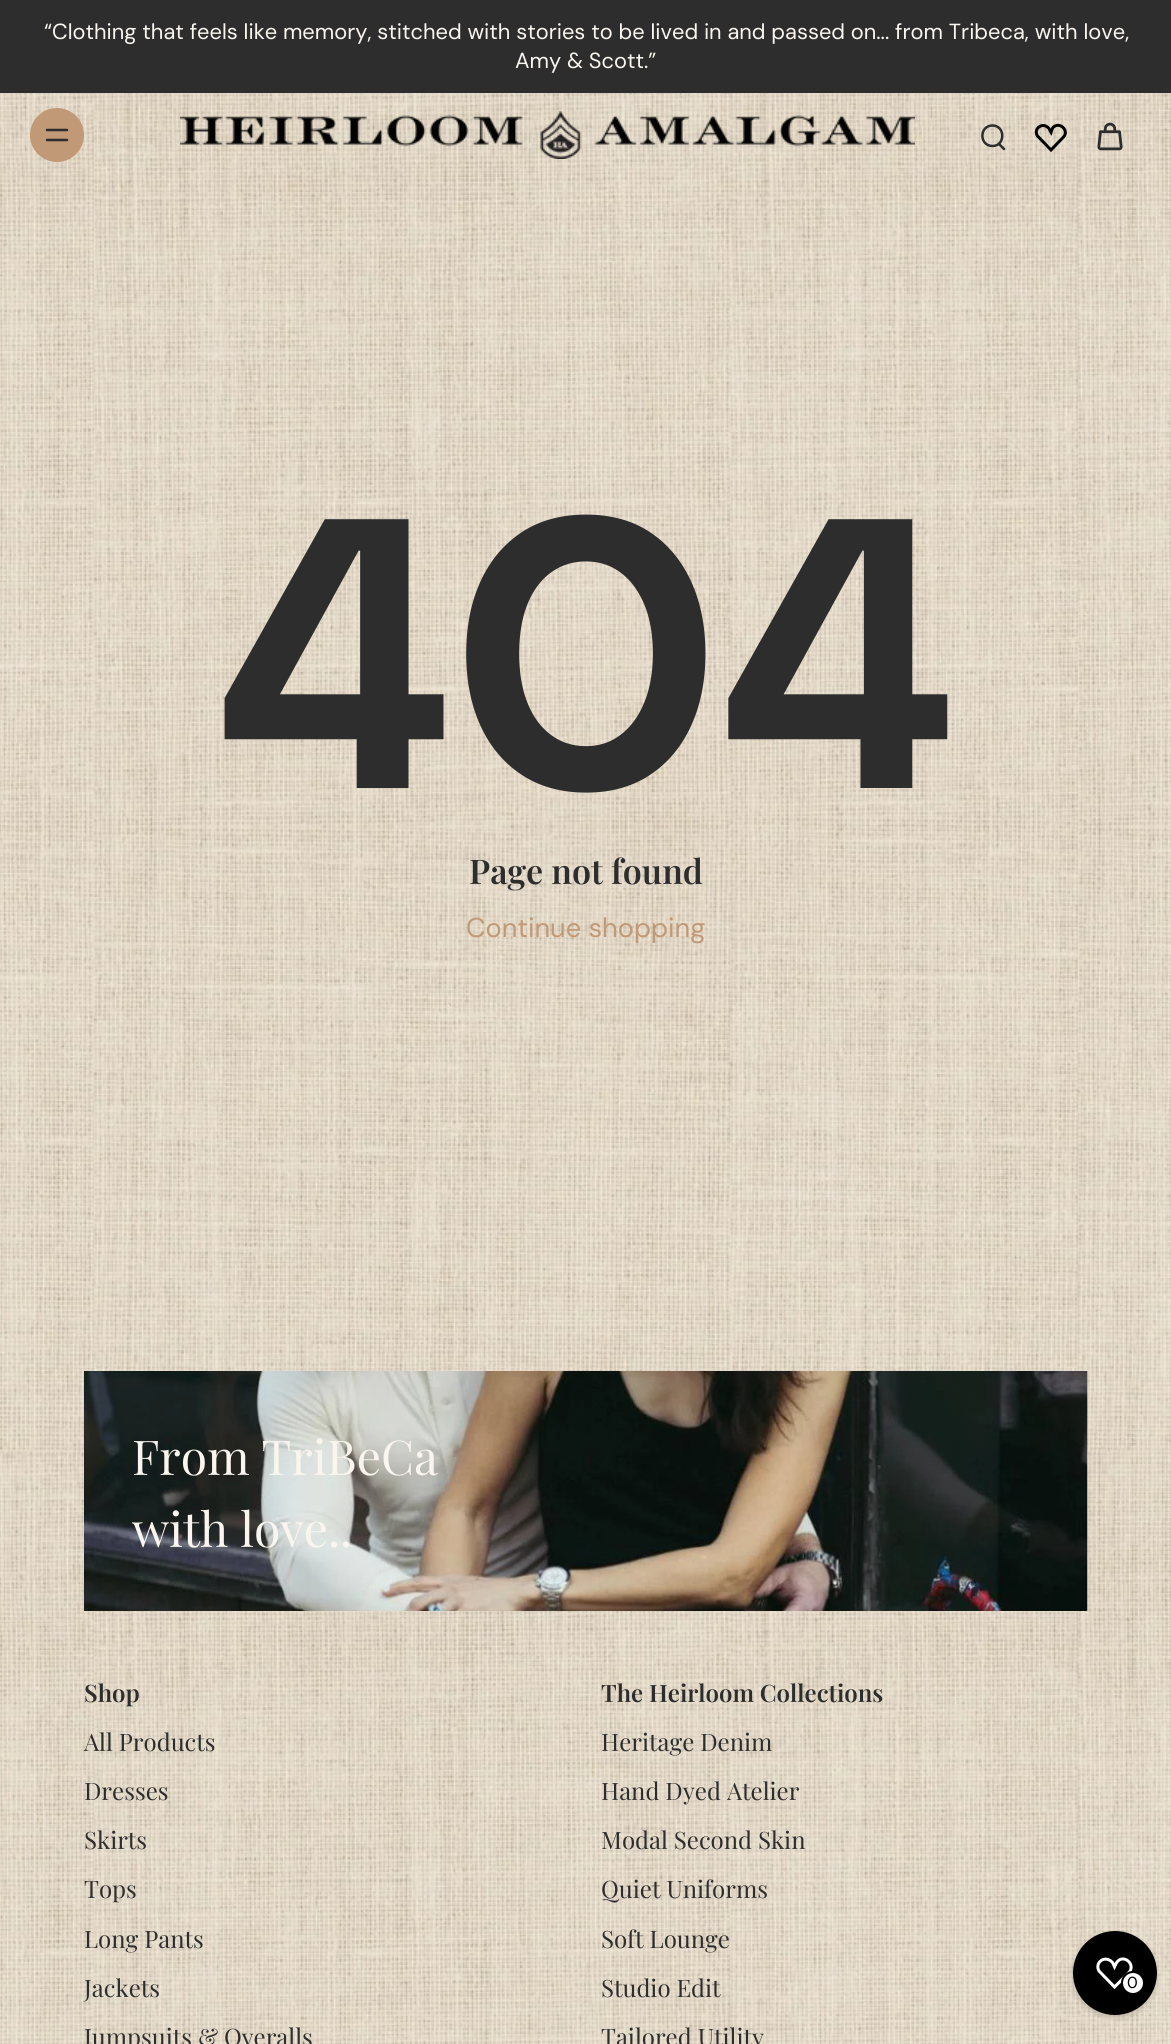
import math
import cairocffi as cairo

surface = cairo.ImageSurface(cairo.FORMAT_RGB24, 1171, 2044)
cr = cairo.Context(surface)
options = cairo.FontOptions()
options.set_hint_metrics(cairo.HINT_METRICS_OFF)
options.set_hint_style(cairo.HINT_STYLE_NONE)
cr.set_font_options(options)
cr.set_miter_limit(4)


def use_color(code):
    cr.set_source_rgb(*(v / 255 for v in bytes.fromhex(code[-6:])))


def round_rect(x, y, w, h, r):
    cr.new_sub_path()
    for i, (u, v) in enumerate([(x + w - r, y + h - r), (x + r, y + h - r), (x + r, y + r), (x + w - r, y + r)]):
        cr.arc(u, v, r, i * math.pi / 2, (i + 1) * math.pi / 2)
    cr.close_path()


def shadow(x, y, w, h, r, blur, alpha):
    cr.push_group_with_content(cairo.CONTENT_ALPHA)
    cr.set_operator(cairo.OPERATOR_SOURCE)
    for i in range(15, -16, -2):
        e = blur * i / 6
        if min(w, h) + 2 * e > 0:
            cr.set_source_rgba(0, 0, 0, alpha * math.erfc((i - 1) / 8.5) / 2)
            round_rect(x - e, y - e, w + 2 * e, h + 2 * e, max(0, min(r + e + blur * .6, min(w, h) / 2 + e)))
            cr.fill()
    cr.mask(cr.pop_group())


def picture(path, x, y, w, h):
    cr.save()
    cr.set_source_surface(cairo.ImageSurface.create_from_png(path), x, y)
    cr.rectangle(x, y, w, h)
    cr.fill()
    cr.restore()


use_color("#ffffff")
cr.paint()
picture("img1.png", 0, 93, 1171, 1951)
use_color("#2d2d2d")
cr.rectangle(0, 0, 1171, 93)
cr.fill()
cr.select_font_face("DM Sans")
cr.set_font_size(21.85)
use_color("#faf5ee")
cr.move_to(44, 39)
cr.show_text("“Clothing that feels like memory, stitched with stories to be lived in and passed on... from Tribeca, with love,")
cr.move_to(515, 68)
cr.show_text("Amy & Scott.”")
use_color("#c19976")
cr.new_path()
cr.arc(57, 135, 27, 0, 2 * math.pi)
cr.fill()
cr.new_path()
cr.move_to(47, 130)
cr.line_to(67, 130)
cr.move_to(47, 140)
cr.line_to(67, 140)
use_color("#2d2d2d")
cr.set_line_width(2.5)
cr.set_line_cap(cairo.LINE_CAP_ROUND)
cr.stroke()
picture("img2.png", 180, 111, 735, 48)
cr.new_path()
cr.move_to(992.5, 146)
cr.curve_to(1005.5, 146, 1005.5, 125.5, 992.5, 125.5)
cr.curve_to(979, 125.5, 979, 146, 992.5, 146)
cr.close_path()
cr.set_line_cap(cairo.LINE_CAP_BUTT)
cr.stroke()
cr.new_path()
cr.move_to(999, 144)
cr.line_to(1004, 149)
cr.set_line_cap(cairo.LINE_CAP_ROUND)
cr.stroke()
cr.new_path()
cr.move_to(1063.5, 137)
cr.line_to(1051, 150)
cr.line_to(1037.5, 136)
cr.curve_to(1033, 129, 1042, 122, 1048, 127.5)
cr.curve_to(1049.5, 128.5, 1050, 131, 1051, 132.5)
cr.curve_to(1051.5, 131, 1052, 129, 1053, 127.5)
cr.curve_to(1059.5, 121, 1069.5, 130.5, 1063.5, 137)
cr.close_path()
use_color("#000000")
cr.set_line_width(3)
cr.set_line_cap(cairo.LINE_CAP_BUTT)
cr.stroke()
picture("img3.png", 1097, 122, 26, 29)
cr.select_font_face("DM Sans", cairo.FONT_SLANT_NORMAL, cairo.FONT_WEIGHT_BOLD)
cr.set_font_size(384)
use_color("#2d2d2d")
cr.move_to(215, 788)
cr.show_text("404")
cr.select_font_face("Playfair Display SemiBold")
cr.set_font_size(34)
cr.move_to(469, 884)
cr.show_text("Page not found")
cr.select_font_face("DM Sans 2")
cr.set_font_size(27.25)
use_color("#c19976")
cr.move_to(466, 937)
cr.show_text("Continue shopping")
picture("img4.png", 84, 1371, 1004, 240)
cr.select_font_face("Playfair Display")
cr.set_font_size(48)
use_color("#faf5ee")
cr.move_to(132, 1475)
cr.show_text("From TriBeCa")
cr.move_to(132, 1547)
cr.show_text("with love..")
cr.select_font_face("Playfair Display SemiBold")
cr.set_font_size(24)
use_color("#2d2d2d")
cr.move_to(84, 1702)
cr.show_text("Shop")
cr.select_font_face("Playfair Display")
cr.move_to(84, 1751)
cr.show_text("All Products")
cr.move_to(84, 1800)
cr.show_text("Dresses")
cr.move_to(84, 1849)
cr.show_text("Skirts")
cr.move_to(84, 1898)
cr.show_text("Tops")
cr.move_to(84, 1948)
cr.show_text("Long Pants")
cr.move_to(84, 1997)
cr.show_text("Jackets")
cr.move_to(84, 2046)
cr.show_text("Jumpsuits & Overalls")
cr.select_font_face("Playfair Display SemiBold")
cr.move_to(601, 1702)
cr.show_text("The Heirloom Collections")
cr.select_font_face("Playfair Display")
cr.move_to(601, 1751)
cr.show_text("Heritage Denim")
cr.move_to(601, 1800)
cr.show_text("Hand Dyed Atelier")
cr.move_to(601, 1849)
cr.show_text("Modal Second Skin")
cr.move_to(601, 1898)
cr.show_text("Quiet Uniforms")
cr.move_to(601, 1948)
cr.show_text("Soft Lounge")
cr.move_to(601, 1997)
cr.show_text("Studio Edit")
cr.move_to(601, 2046)
cr.show_text("Tailored Utility")
use_color("#000000")
shadow(1073, 1934, 84, 84, 42, 3, 0.15)
use_color("#000000")
cr.arc(1115, 1973, 40.5, 0, 2 * math.pi)
cr.fill_preserve()
cr.stroke()
cr.new_path()
cr.move_to(1129, 1972.5)
cr.line_to(1114.5, 1987)
cr.line_to(1099, 1971)
cr.curve_to(1094.5, 1963, 1104, 1955, 1111.5, 1961.5)
cr.curve_to(1113, 1962.5, 1113.5, 1965, 1114.5, 1967)
cr.curve_to(1115.5, 1965, 1116, 1963, 1117.5, 1961.5)
cr.curve_to(1124, 1954, 1136, 1964.5, 1129, 1972.5)
cr.close_path()
use_color("#ffffff")
cr.stroke()
cr.arc(1133, 1983, 11, 0, 2 * math.pi)
cr.fill_preserve()
use_color("#000000")
cr.set_line_width(2)
cr.stroke()
cr.select_font_face("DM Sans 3")
cr.set_font_size(16)
cr.move_to(1127, 1988)
cr.show_text("0")
surface.write_to_png("result.png")
